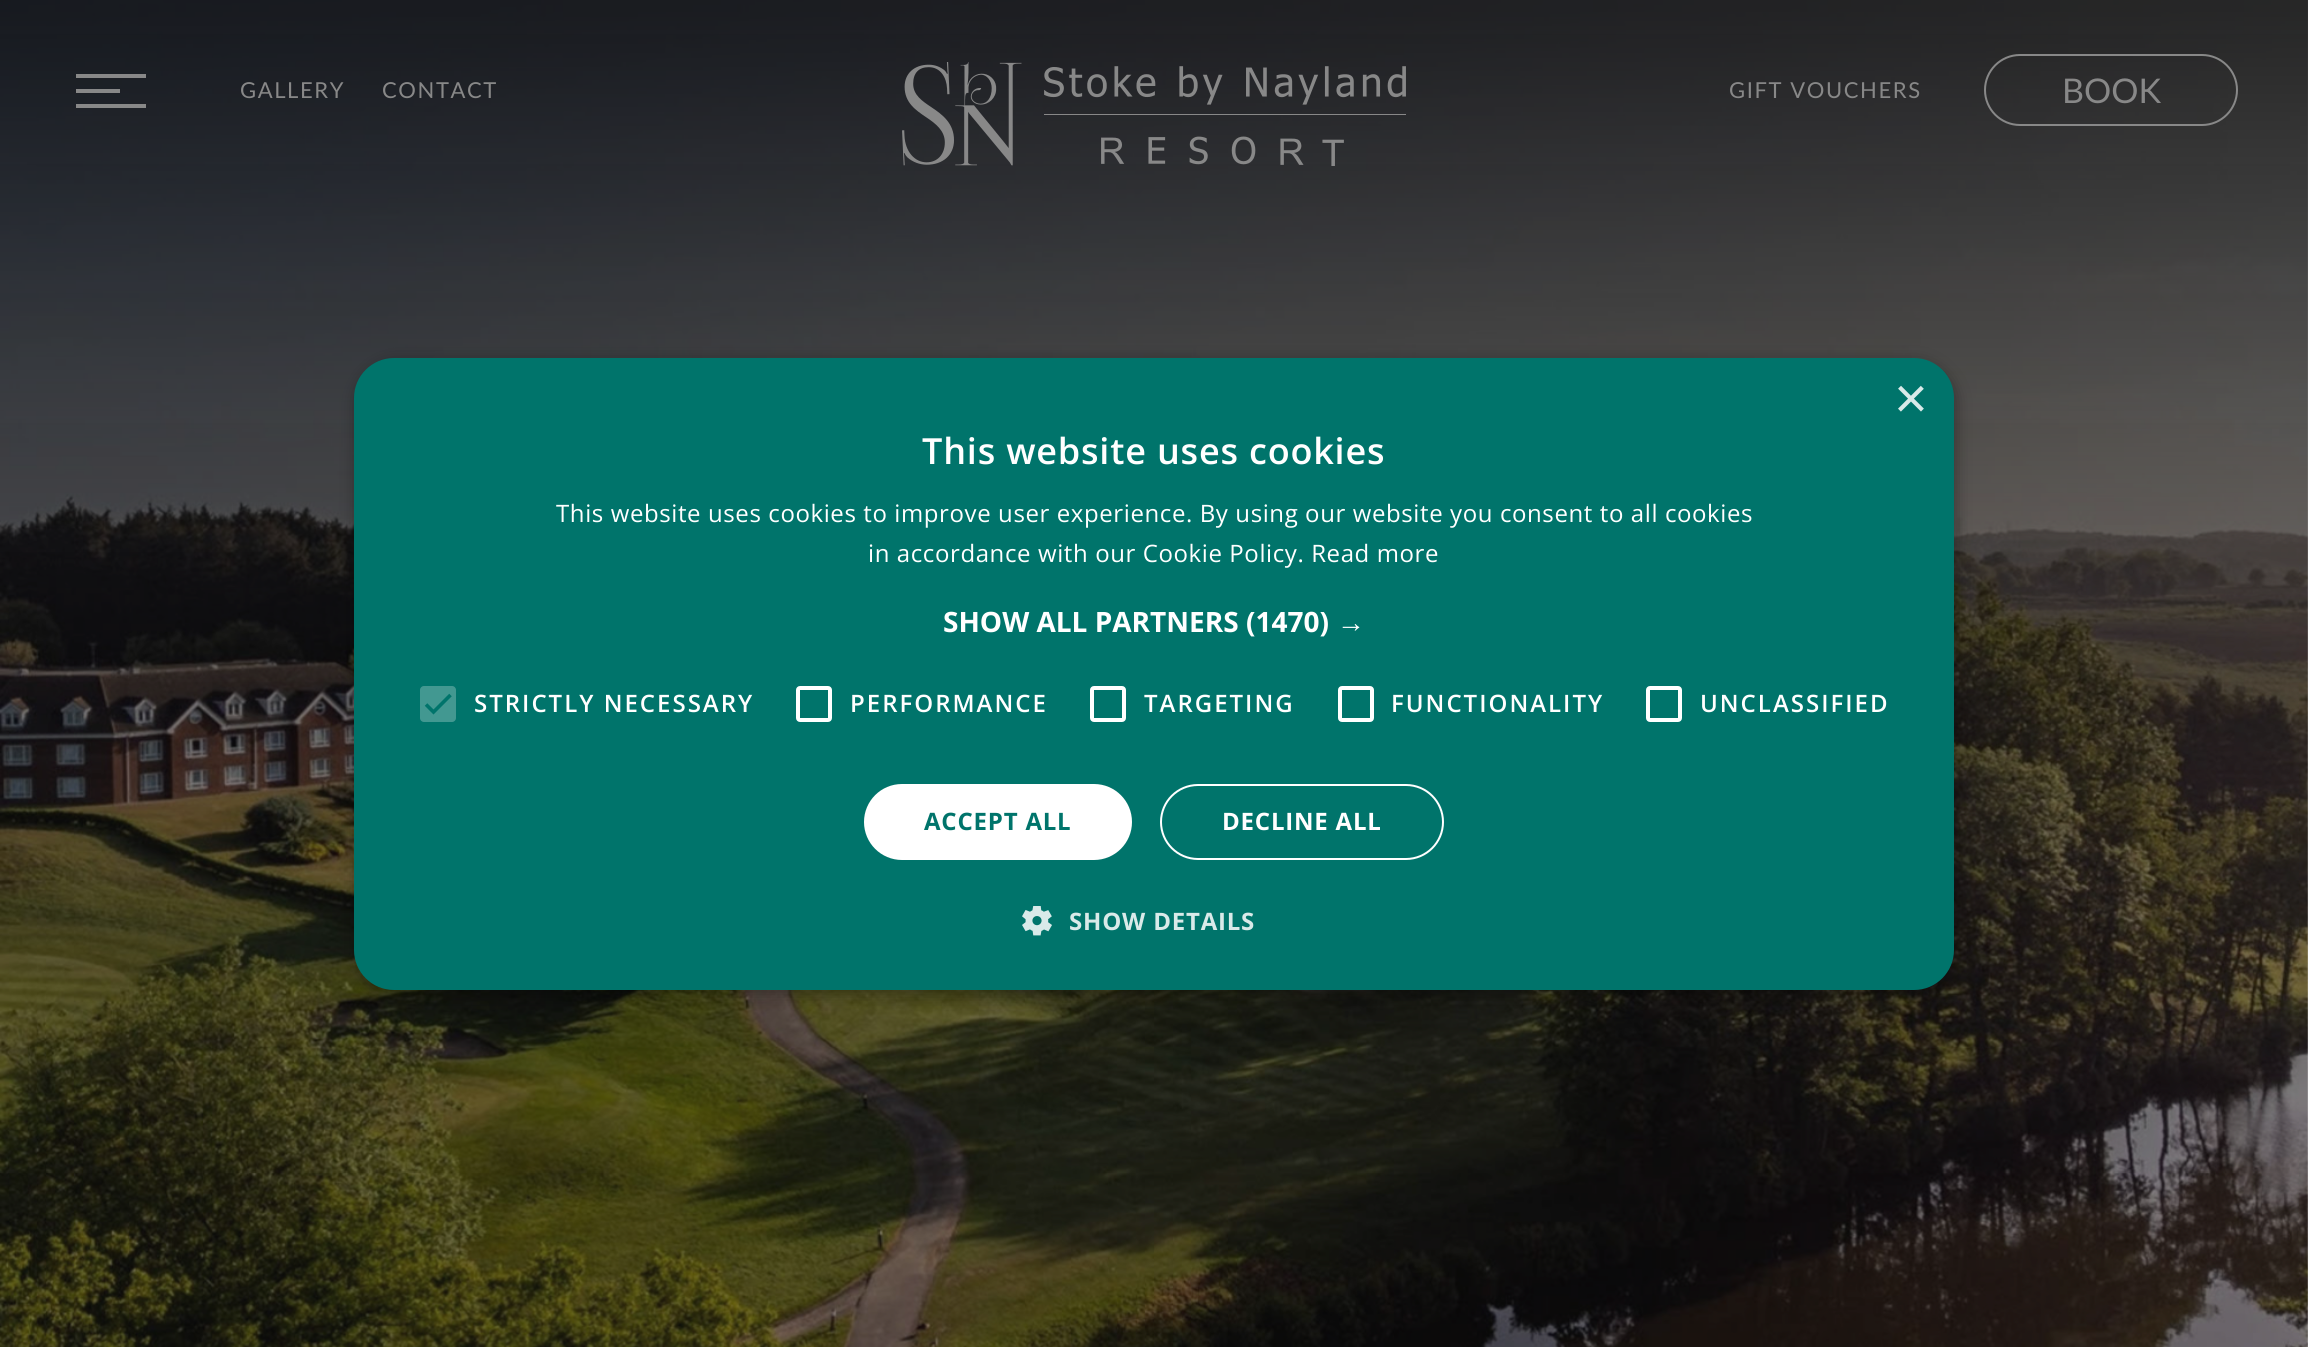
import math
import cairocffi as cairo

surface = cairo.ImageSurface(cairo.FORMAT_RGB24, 2308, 1347)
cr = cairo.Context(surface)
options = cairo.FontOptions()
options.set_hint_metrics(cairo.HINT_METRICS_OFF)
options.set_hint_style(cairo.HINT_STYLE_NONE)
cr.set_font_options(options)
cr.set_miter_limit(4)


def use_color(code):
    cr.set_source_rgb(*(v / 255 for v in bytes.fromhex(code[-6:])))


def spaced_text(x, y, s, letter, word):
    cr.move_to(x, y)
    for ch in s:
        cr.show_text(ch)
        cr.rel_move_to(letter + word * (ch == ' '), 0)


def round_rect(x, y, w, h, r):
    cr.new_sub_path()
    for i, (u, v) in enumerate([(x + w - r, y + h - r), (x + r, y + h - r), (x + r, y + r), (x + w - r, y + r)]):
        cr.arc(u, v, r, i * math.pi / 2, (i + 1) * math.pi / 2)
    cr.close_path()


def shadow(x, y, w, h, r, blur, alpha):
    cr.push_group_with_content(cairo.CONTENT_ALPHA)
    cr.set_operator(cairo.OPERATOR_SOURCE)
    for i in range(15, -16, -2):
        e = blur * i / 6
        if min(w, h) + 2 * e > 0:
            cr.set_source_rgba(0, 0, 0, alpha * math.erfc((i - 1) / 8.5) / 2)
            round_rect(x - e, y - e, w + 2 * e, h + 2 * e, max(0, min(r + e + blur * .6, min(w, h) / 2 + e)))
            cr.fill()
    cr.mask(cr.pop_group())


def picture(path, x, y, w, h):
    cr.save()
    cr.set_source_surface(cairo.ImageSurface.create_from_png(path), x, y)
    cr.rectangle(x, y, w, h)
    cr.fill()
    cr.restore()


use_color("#ffffff")
cr.paint()
picture("img1.png", 0, 0, 2308, 1347)
gradient = cairo.LinearGradient(1154, 0, 1154, 876)
gradient.add_color_stop_rgba(0.01, 0.035, 0.035, 0.035, 0.75)
gradient.add_color_stop_rgba(1, 0.035, 0.035, 0.035, 0)
cr.set_source(gradient)
cr.rectangle(0, 0, 2308, 851)
cr.fill()
use_color("#888888")
cr.rectangle(76, 74, 70, 4)
cr.fill()
cr.rectangle(76, 89, 44, 4)
cr.fill()
cr.rectangle(76, 104, 70, 4)
cr.fill()
cr.select_font_face("Lato")
cr.set_font_size(22)
spaced_text(240, 98, "GALLERY", 1.6, 0)
spaced_text(382, 98, "CONTACT", 1.6, 0)
picture("img2.png", 902, 62, 504, 104)
spaced_text(1729, 98, "GIFT VOUCHERS", 1.6, 0)
round_rect(1985, 55, 252, 70, 35)
cr.stroke()
cr.set_font_size(34)
cr.move_to(2062, 103)
cr.show_text("BOOK")
use_color("#000000")
shadow(356, 362, 1600, 632, 40, 8, 0.35)
use_color("#00746b")
round_rect(354, 358, 1600, 632, 40)
cr.fill()
cr.select_font_face("Liberation Sans")
cr.set_font_size(58)
use_color("#d9eae9")
cr.move_to(1894, 418)
cr.show_text("×")
cr.select_font_face("Open Sans SemiBold")
cr.set_font_size(36)
use_color("#ffffff")
spaced_text(922, 464, "This website uses cookies", 0.8, 0)
cr.select_font_face("Open Sans")
cr.set_font_size(24)
spaced_text(556, 522, "This website uses cookies to improve user experience. By using our website you consent to all cookies", 0.6, 0)
spaced_text(868, 562, "in accordance with our Cookie Policy. Read more", 0.6, 0)
cr.select_font_face("Open Sans", cairo.FONT_SLANT_NORMAL, cairo.FONT_WEIGHT_BOLD)
cr.set_font_size(28)
cr.move_to(943, 632)
cr.show_text("SHOW ALL PARTNERS (1470)")
cr.select_font_face("Liberation Sans", cairo.FONT_SLANT_NORMAL, cairo.FONT_WEIGHT_BOLD)
cr.move_to(1337, 632)
cr.show_text("→")
use_color("#429891")
round_rect(420, 686, 36, 36, 4)
cr.fill()
cr.new_path()
cr.move_to(426, 704.5)
cr.line_to(433.5, 712)
cr.line_to(450.5, 695)
use_color("#00746b")
cr.set_line_width(3.6)
cr.stroke()
cr.select_font_face("Open Sans SemiBold")
cr.set_font_size(24)
use_color("#ffffff")
spaced_text(474, 712, "STRICTLY NECESSARY", 2, 0)
round_rect(798, 688, 32, 32, 2)
cr.set_line_width(4)
cr.stroke()
spaced_text(850, 712, "PERFORMANCE", 2, 0)
round_rect(1092, 688, 32, 32, 2)
cr.stroke()
spaced_text(1144, 712, "TARGETING", 2, 0)
round_rect(1340, 688, 32, 32, 2)
cr.stroke()
spaced_text(1391, 712, "FUNCTIONALITY", 2, 0)
round_rect(1648, 688, 32, 32, 2)
cr.stroke()
spaced_text(1700, 712, "UNCLASSIFIED", 2, 0)
round_rect(864, 784, 268, 76, 38)
cr.fill()
cr.select_font_face("Open Sans", cairo.FONT_SLANT_NORMAL, cairo.FONT_WEIGHT_BOLD)
use_color("#00746b")
spaced_text(924, 830, "ACCEPT ALL", 0.8, 0)
round_rect(1161, 785, 282, 74, 37)
use_color("#ffffff")
cr.set_line_width(2)
cr.stroke()
spaced_text(1222, 830, "DECLINE ALL", 0.8, 0)
picture("img3.png", 1022, 906, 30, 30)
use_color("#d9eae9")
spaced_text(1069, 930, "SHOW DETAILS", 0.8, 0)
surface.write_to_png("result.png")
